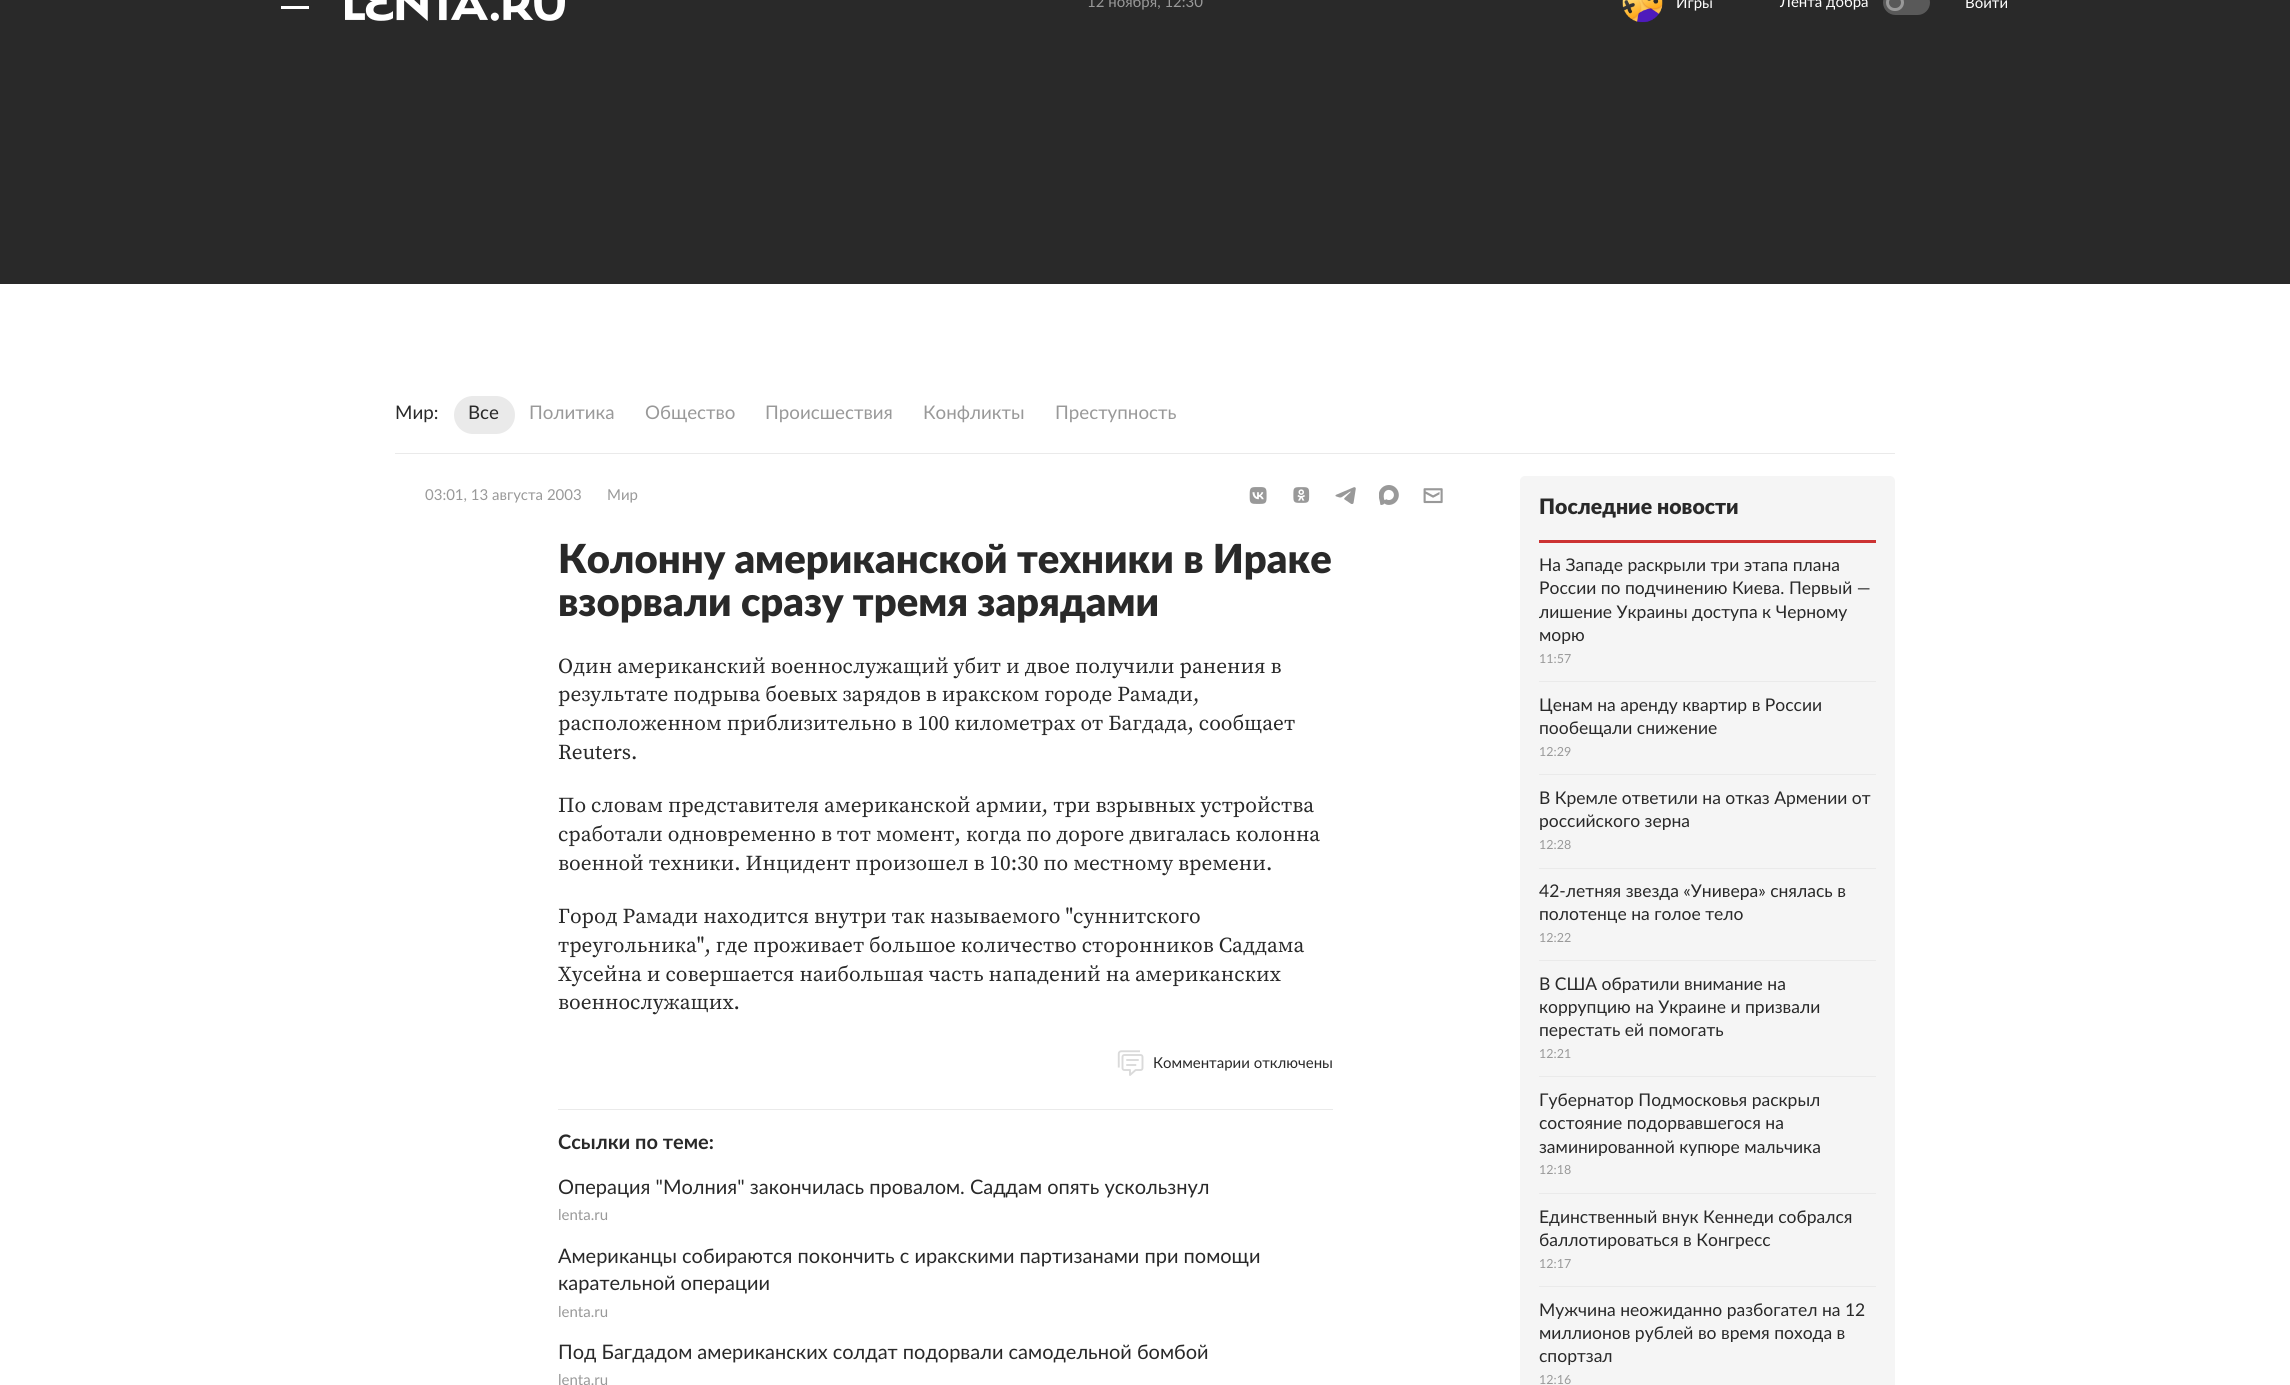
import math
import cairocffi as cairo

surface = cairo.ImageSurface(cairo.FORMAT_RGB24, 2290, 1385)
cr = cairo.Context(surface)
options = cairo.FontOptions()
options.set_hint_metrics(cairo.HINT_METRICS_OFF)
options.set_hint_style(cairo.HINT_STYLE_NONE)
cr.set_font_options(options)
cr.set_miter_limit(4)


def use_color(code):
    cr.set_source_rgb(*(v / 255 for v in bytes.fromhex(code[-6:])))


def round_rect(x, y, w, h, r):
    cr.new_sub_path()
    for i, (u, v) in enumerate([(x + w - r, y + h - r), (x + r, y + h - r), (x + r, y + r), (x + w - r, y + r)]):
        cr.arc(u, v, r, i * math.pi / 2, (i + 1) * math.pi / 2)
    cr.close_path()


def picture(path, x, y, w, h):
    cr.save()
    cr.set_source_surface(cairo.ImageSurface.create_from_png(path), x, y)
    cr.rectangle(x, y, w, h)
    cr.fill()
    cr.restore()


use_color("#ffffff")
cr.paint()
use_color("#292929")
cr.rectangle(0, 0, 2290, 284)
cr.fill()
use_color("#ffffff")
cr.rectangle(281, 6, 28, 3)
cr.fill()
picture("img1.png", 345, 0, 220, 21)
cr.select_font_face("Lato")
cr.set_font_size(15)
use_color("#999999")
cr.move_to(1087, 7)
cr.show_text("12 ноября, 12:30")
picture("img2.png", 1622, 0, 41, 23)
use_color("#ffffff")
cr.move_to(1676, 8)
cr.show_text("Игры")
cr.move_to(1780, 7)
cr.show_text("Лента добра")
use_color("#595959")
round_rect(1883, -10, 47, 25, 12.5)
cr.fill()
round_rect(1887.5, -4.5, 15, 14, 7)
use_color("#999999")
cr.set_line_width(3)
cr.stroke()
use_color("#ffffff")
cr.move_to(1965, 8)
cr.show_text("Войти")
use_color("#eaeaea")
cr.rectangle(395, 453, 1500, 1)
cr.fill()
cr.set_font_size(18.75)
use_color("#292929")
cr.move_to(395, 419)
cr.show_text("Мир:")
use_color("#eaeaea")
round_rect(454, 396, 61, 38, 19)
cr.fill()
use_color("#292929")
cr.move_to(468, 419)
cr.show_text("Все")
use_color("#999999")
cr.move_to(529, 419)
cr.show_text("Политика")
cr.move_to(645, 419)
cr.show_text("Общество")
cr.move_to(765, 419)
cr.show_text("Происшествия")
cr.move_to(923, 419)
cr.show_text("Конфликты")
cr.move_to(1055, 419)
cr.show_text("Преступность")
cr.set_font_size(15)
cr.move_to(425, 500)
cr.show_text("03:01, 13 августа 2003")
cr.move_to(607, 500)
cr.show_text("Мир")
picture("img3.png", 1249, 487, 18, 17)
picture("img4.png", 1293, 487, 17, 16)
picture("img5.png", 1335, 487, 21, 17)
picture("img6.png", 1379, 485, 20, 20)
picture("img7.png", 1423, 488, 20, 16)
cr.select_font_face("Lato Black")
cr.set_font_size(40)
use_color("#292929")
cr.move_to(558, 573)
cr.show_text("Колонну американской техники в Ираке")
cr.move_to(558, 616)
cr.show_text("взорвали сразу тремя зарядами")
cr.select_font_face("Source Serif Pro")
cr.set_font_size(21.25)
cr.move_to(558, 673)
cr.show_text("Один американский военнослужащий убит и двое получили ранения в")
cr.move_to(558, 701)
cr.show_text("результате подрыва боевых зарядов в иракском городе Рамади,")
cr.move_to(558, 730)
cr.show_text("расположенном приблизительно в 100 километрах от Багдада, сообщает")
cr.move_to(558, 759)
cr.show_text("Reuters.")
cr.move_to(558, 812)
cr.show_text("По словам представителя американской армии, три взрывных устройства")
cr.move_to(558, 841)
cr.show_text("сработали одновременно в тот момент, когда по дороге двигалась колонна")
cr.move_to(558, 870)
cr.show_text("военной техники. Инцидент произошел в 10:30 по местному времени.")
cr.move_to(558, 923)
cr.show_text("Город Рамади находится внутри так называемого \"суннитского")
cr.move_to(558, 952)
cr.show_text("треугольника\", где проживает большое количество сторонников Саддама")
cr.move_to(558, 981)
cr.show_text("Хусейна и совершается наибольшая часть нападений на американских")
cr.move_to(558, 1009)
cr.show_text("военнослужащих.")
picture("img8.png", 1117, 1050, 27, 26)
cr.select_font_face("Lato")
cr.set_font_size(15)
cr.move_to(1153, 1068)
cr.show_text("Комментарии отключены")
use_color("#eaeaea")
cr.rectangle(558, 1109, 775, 1)
cr.fill()
cr.select_font_face("Lato", cairo.FONT_SLANT_NORMAL, cairo.FONT_WEIGHT_BOLD)
cr.set_font_size(20)
use_color("#292929")
cr.move_to(558, 1149)
cr.show_text("Ссылки по теме:")
cr.select_font_face("Lato")
cr.move_to(558, 1194)
cr.show_text("Операция \"Молния\" закончилась провалом. Саддам опять ускользнул")
cr.set_font_size(15)
use_color("#999999")
cr.move_to(558, 1220)
cr.show_text("lenta.ru")
cr.set_font_size(20)
use_color("#292929")
cr.move_to(558, 1263)
cr.show_text("Американцы собираются покончить с иракскими партизанами при помощи")
cr.move_to(558, 1290)
cr.show_text("карательной операции")
cr.set_font_size(15)
use_color("#999999")
cr.move_to(558, 1317)
cr.show_text("lenta.ru")
cr.set_font_size(20)
use_color("#292929")
cr.move_to(558, 1359)
cr.show_text("Под Багдадом американских солдат подорвали самодельной бомбой")
cr.set_font_size(15)
use_color("#999999")
cr.move_to(558, 1385)
cr.show_text("lenta.ru")
use_color("#f5f5f5")
round_rect(1520, 476, 375, 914, 5)
cr.fill()
use_color("#cc3333")
cr.rectangle(1539, 540, 337, 3)
cr.fill()
cr.select_font_face("Lato Black")
cr.set_font_size(21.25)
use_color("#292929")
cr.move_to(1539, 514)
cr.show_text("Последние новости")
use_color("#eaeaea")
cr.rectangle(1539, 681, 337, 1)
cr.fill()
cr.select_font_face("Lato")
cr.set_font_size(17.5)
use_color("#292929")
cr.move_to(1539, 571)
cr.show_text("На Западе раскрыли три этапа плана")
cr.move_to(1539, 594)
cr.show_text("России по подчинению Киева. Первый —")
cr.move_to(1539, 618)
cr.show_text("лишение Украины доступа к Черному")
cr.move_to(1539, 641)
cr.show_text("морю")
cr.set_font_size(12.5)
use_color("#999999")
cr.move_to(1539, 663)
cr.show_text("11:57")
use_color("#eaeaea")
cr.rectangle(1539, 774, 337, 1)
cr.fill()
cr.set_font_size(17.5)
use_color("#292929")
cr.move_to(1539, 711)
cr.show_text("Ценам на аренду квартир в России")
cr.move_to(1539, 734)
cr.show_text("пообещали снижение")
cr.set_font_size(12.5)
use_color("#999999")
cr.move_to(1539, 756)
cr.show_text("12:29")
use_color("#eaeaea")
cr.rectangle(1539, 868, 337, 1)
cr.fill()
cr.set_font_size(17.5)
use_color("#292929")
cr.move_to(1539, 804)
cr.show_text("В Кремле ответили на отказ Армении от")
cr.move_to(1539, 827)
cr.show_text("российского зерна")
cr.set_font_size(12.5)
use_color("#999999")
cr.move_to(1539, 849)
cr.show_text("12:28")
use_color("#eaeaea")
cr.rectangle(1539, 960, 337, 1)
cr.fill()
cr.set_font_size(17.5)
use_color("#292929")
cr.move_to(1539, 897)
cr.show_text("42-летняя звезда «Универа» снялась в")
cr.move_to(1539, 920)
cr.show_text("полотенце на голое тело")
cr.set_font_size(12.5)
use_color("#999999")
cr.move_to(1539, 942)
cr.show_text("12:22")
use_color("#eaeaea")
cr.rectangle(1539, 1076, 337, 1)
cr.fill()
cr.set_font_size(17.5)
use_color("#292929")
cr.move_to(1539, 990)
cr.show_text("В США обратили внимание на")
cr.move_to(1539, 1013)
cr.show_text("коррупцию на Украине и призвали")
cr.move_to(1539, 1036)
cr.show_text("перестать ей помогать")
cr.set_font_size(12.5)
use_color("#999999")
cr.move_to(1539, 1058)
cr.show_text("12:21")
use_color("#eaeaea")
cr.rectangle(1539, 1193, 337, 1)
cr.fill()
cr.set_font_size(17.5)
use_color("#292929")
cr.move_to(1539, 1106)
cr.show_text("Губернатор Подмосковья раскрыл")
cr.move_to(1539, 1129)
cr.show_text("состояние подорвавшегося на")
cr.move_to(1539, 1153)
cr.show_text("заминированной купюре мальчика")
cr.set_font_size(12.5)
use_color("#999999")
cr.move_to(1539, 1174)
cr.show_text("12:18")
use_color("#eaeaea")
cr.rectangle(1539, 1286, 337, 1)
cr.fill()
cr.set_font_size(17.5)
use_color("#292929")
cr.move_to(1539, 1223)
cr.show_text("Единственный внук Кеннеди собрался")
cr.move_to(1539, 1246)
cr.show_text("баллотироваться в Конгресс")
cr.set_font_size(12.5)
use_color("#999999")
cr.move_to(1539, 1268)
cr.show_text("12:17")
cr.set_font_size(17.5)
use_color("#292929")
cr.move_to(1539, 1316)
cr.show_text("Мужчина неожиданно разбогател на 12")
cr.move_to(1539, 1339)
cr.show_text("миллионов рублей во время похода в")
cr.move_to(1539, 1362)
cr.show_text("спортзал")
cr.set_font_size(12.5)
use_color("#999999")
cr.move_to(1539, 1384)
cr.show_text("12:16")
surface.write_to_png("result.png")
